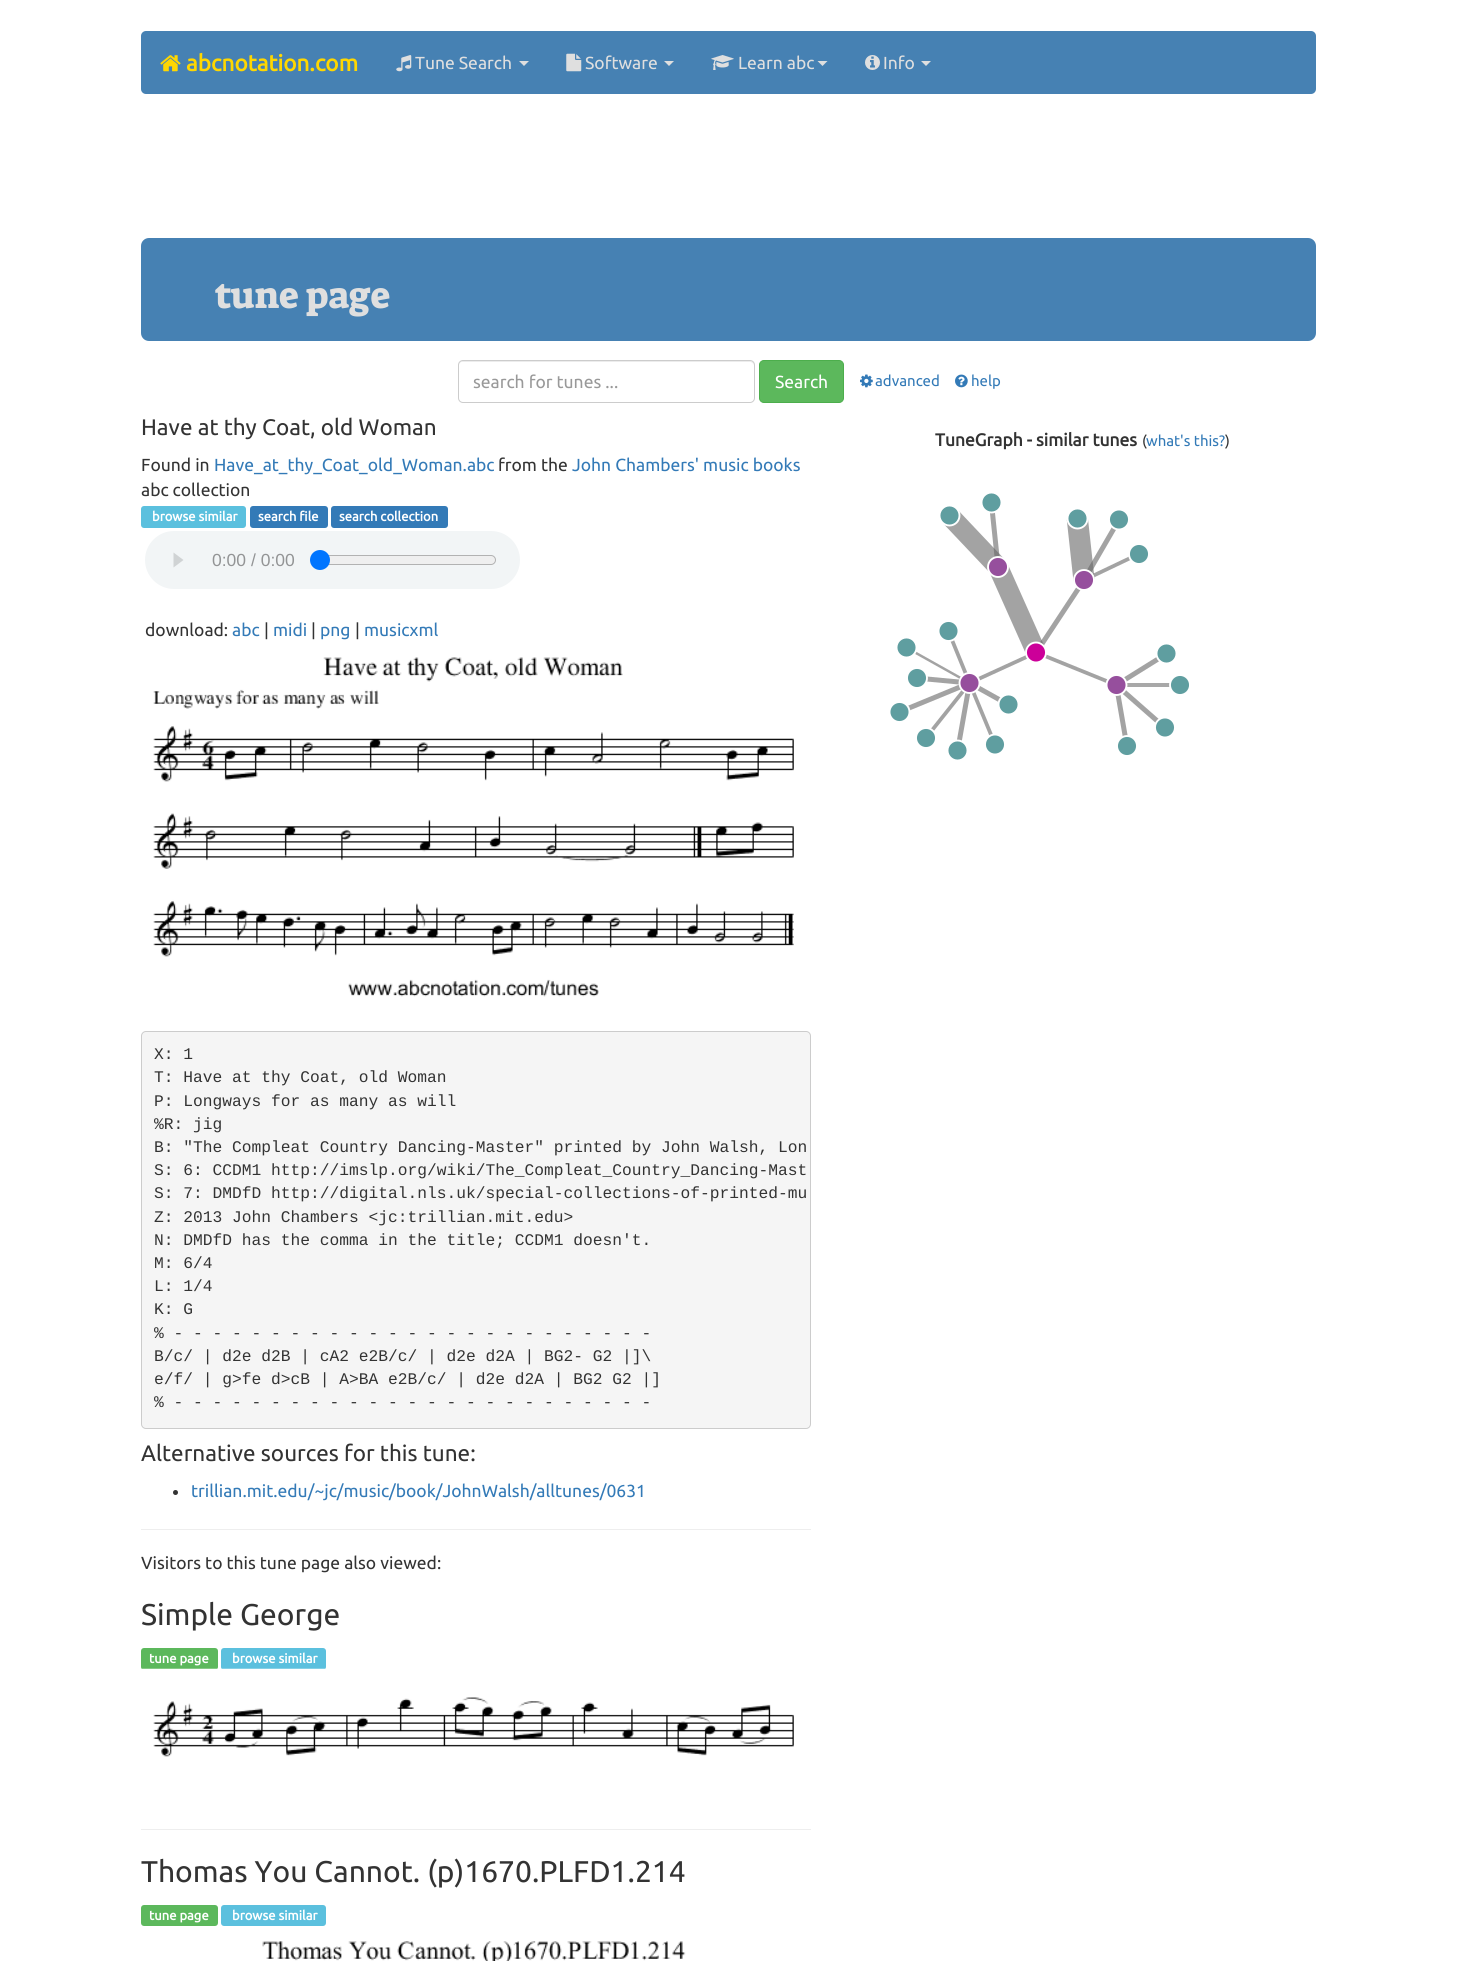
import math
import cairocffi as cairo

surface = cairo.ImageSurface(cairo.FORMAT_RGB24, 1457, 1961)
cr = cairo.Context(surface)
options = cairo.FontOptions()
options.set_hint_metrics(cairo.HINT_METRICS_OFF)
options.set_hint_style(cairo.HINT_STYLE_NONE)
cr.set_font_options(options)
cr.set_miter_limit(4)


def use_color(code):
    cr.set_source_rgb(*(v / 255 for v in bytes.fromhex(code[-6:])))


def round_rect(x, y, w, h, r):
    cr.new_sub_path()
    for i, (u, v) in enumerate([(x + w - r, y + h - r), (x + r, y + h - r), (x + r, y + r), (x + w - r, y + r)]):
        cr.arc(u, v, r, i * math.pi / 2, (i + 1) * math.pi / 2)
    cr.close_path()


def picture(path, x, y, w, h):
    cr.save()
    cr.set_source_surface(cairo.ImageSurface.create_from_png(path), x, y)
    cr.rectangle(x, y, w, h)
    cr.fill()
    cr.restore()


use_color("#ffffff")
cr.paint()
use_color("#4681b3")
round_rect(141, 31, 1175, 63, 5)
cr.fill()
picture("img1.png", 160, 55, 21, 17)
cr.select_font_face("Ubuntu", cairo.FONT_SLANT_NORMAL, cairo.FONT_WEIGHT_BOLD)
cr.set_font_size(22.5)
use_color("#ffd700")
cr.move_to(186, 71)
cr.show_text("abcnotation.com")
picture("img2.png", 396, 55, 16, 17)
cr.select_font_face("Ubuntu")
cr.set_font_size(17.5)
use_color("#dfdfdf")
cr.move_to(415, 69)
cr.show_text("Tune Search")
cr.new_path()
cr.move_to(519, 61)
cr.line_to(529, 61)
cr.line_to(524, 66)
cr.close_path()
cr.fill()
picture("img3.png", 566, 53, 16, 19)
cr.move_to(585, 69)
cr.show_text("Software")
cr.new_path()
cr.move_to(664, 61)
cr.line_to(674, 61)
cr.line_to(669, 66)
cr.close_path()
cr.fill()
picture("img4.png", 711, 55, 23, 15)
cr.move_to(738, 69)
cr.show_text("Learn abc")
cr.new_path()
cr.move_to(817.5, 61)
cr.line_to(827.5, 61)
cr.line_to(822.5, 66)
cr.close_path()
cr.fill()
picture("img5.png", 865, 55, 15, 15)
cr.move_to(883, 69)
cr.show_text("Info")
cr.new_path()
cr.move_to(921, 61)
cr.line_to(931, 61)
cr.line_to(926, 66)
cr.close_path()
cr.fill()
use_color("#4681b3")
round_rect(141, 238, 1175, 103, 8)
cr.fill()
cr.select_font_face("Suez One")
cr.set_font_size(37.5)
use_color("#dfdfdf")
cr.move_to(216, 308)
cr.show_text("tune page")
use_color("#ececec")
cr.new_path()
cr.move_to(462, 362)
cr.line_to(750, 362)
cr.curve_to(752, 362, 754, 364, 754, 366)
cr.curve_to(754, 363, 753, 361, 750, 361)
cr.line_to(463, 361)
cr.curve_to(460, 361, 459, 363, 459, 366)
cr.curve_to(459, 364, 460, 362, 462, 362)
cr.close_path()
cr.fill()
round_rect(458.5, 360.5, 296, 42, 4.5)
use_color("#cccccc")
cr.set_line_width(1)
cr.stroke()
cr.select_font_face("Ubuntu")
cr.set_font_size(17.5)
use_color("#999999")
cr.move_to(473, 388)
cr.show_text("search for tunes ...")
use_color("#5cb85c")
round_rect(759.5, 360.5, 84, 42, 4.5)
cr.fill_preserve()
use_color("#4cae4c")
cr.stroke()
use_color("#ffffff")
cr.move_to(775, 388)
cr.show_text("Search")
picture("img6.png", 860, 374, 13, 14)
cr.set_font_size(15)
use_color("#337ab7")
cr.move_to(875, 386)
cr.show_text("advanced")
picture("img7.png", 955, 374, 13, 14)
cr.move_to(971, 386)
cr.show_text("help")
cr.set_font_size(22.5)
use_color("#333333")
cr.move_to(141, 435)
cr.show_text("Have at thy Coat, old Woman")
cr.set_font_size(17.5)
cr.move_to(141, 471)
cr.show_text("Found in")
use_color("#337ab7")
cr.move_to(214, 471)
cr.show_text("Have_at_thy_Coat_old_Woman.abc")
use_color("#333333")
cr.move_to(498, 471)
cr.show_text("from the")
use_color("#337ab7")
cr.move_to(572, 471)
cr.show_text("John Chambers' music books")
use_color("#333333")
cr.move_to(141, 496)
cr.show_text("abc collection")
use_color("#5bc0de")
round_rect(141, 506, 105, 22, 3)
cr.fill()
cr.select_font_face("Ubuntu", cairo.FONT_SLANT_NORMAL, cairo.FONT_WEIGHT_BOLD)
cr.set_font_size(13)
use_color("#ffffff")
cr.move_to(152, 521)
cr.show_text("browse similar")
use_color("#337ab7")
round_rect(250, 506, 78, 22, 3)
cr.fill()
use_color("#ffffff")
cr.move_to(258, 521)
cr.show_text("search file")
use_color("#337ab7")
round_rect(331, 506, 117, 22, 3)
cr.fill()
use_color("#ffffff")
cr.move_to(339, 521)
cr.show_text("search collection")
use_color("#f2f5f6")
round_rect(145, 531, 375, 58, 29)
cr.fill()
use_color("#d0d3d4")
cr.new_path()
cr.move_to(183.5, 560)
cr.line_to(173.5, 567.5)
cr.line_to(173.5, 552.5)
cr.close_path()
cr.fill()
cr.select_font_face("Liberation Sans")
cr.set_font_size(17.5)
use_color("#939495")
cr.move_to(212, 566)
cr.show_text("0:00 / 0:00")
use_color("#efefef")
round_rect(311.5, 555.5, 184, 9, 4.5)
cr.fill_preserve()
use_color("#b2b2b2")
cr.stroke()
use_color("#0075ff")
cr.arc(320, 560, 10, 0, 2 * math.pi)
cr.fill()
cr.select_font_face("Ubuntu")
use_color("#333333")
cr.move_to(145, 636)
cr.show_text("download:")
use_color("#337ab7")
cr.move_to(232, 636)
cr.show_text("abc")
use_color("#333333")
cr.move_to(264, 636)
cr.show_text("|")
use_color("#337ab7")
cr.move_to(273, 636)
cr.show_text("midi")
use_color("#333333")
cr.move_to(311, 636)
cr.show_text("|")
use_color("#337ab7")
cr.move_to(320, 636)
cr.show_text("png")
use_color("#333333")
cr.move_to(355, 636)
cr.show_text("|")
use_color("#337ab7")
cr.move_to(364, 636)
cr.show_text("musicxml")
picture("img8.png", 153, 657, 641, 340)
use_color("#f5f5f5")
round_rect(141.5, 1031.5, 669, 397, 4.5)
cr.fill_preserve()
use_color("#cccccc")
cr.stroke()
cr.select_font_face("Liberation Mono")
cr.set_font_size(16.25)
use_color("#333333")
cr.move_to(154, 1059)
cr.show_text("X: 1")
cr.move_to(154, 1082)
cr.show_text("T: Have at thy Coat, old Woman")
cr.move_to(154, 1106)
cr.show_text("P: Longways for as many as will")
cr.move_to(154, 1129)
cr.show_text("%R: jig")
cr.move_to(154, 1152)
cr.show_text("B: \"The Compleat Country Dancing-Master\" printed by John Walsh, Lon")
cr.move_to(154, 1175)
cr.show_text("S: 6: CCDM1 http://imslp.org/wiki/The_Compleat_Country_Dancing-Mast")
cr.move_to(154, 1198)
cr.show_text("S: 7: DMDfD http://digital.nls.uk/special-collections-of-printed-mu")
cr.move_to(154, 1222)
cr.show_text("Z: 2013 John Chambers <jc:trillian.mit.edu>")
cr.move_to(154, 1245)
cr.show_text("N: DMDfD has the comma in the title; CCDM1 doesn't.")
cr.move_to(154, 1268)
cr.show_text("M: 6/4")
cr.move_to(154, 1291)
cr.show_text("L: 1/4")
cr.move_to(154, 1314)
cr.show_text("K: G")
cr.move_to(154, 1338)
cr.show_text("% - - - - - - - - - - - - - - - - - - - - - - - - -")
cr.move_to(154, 1361)
cr.show_text("B/c/ | d2e d2B | cA2 e2B/c/ | d2e d2A | BG2- G2 |]\\")
cr.move_to(154, 1384)
cr.show_text("e/f/ | g>fe d>cB | A>BA e2B/c/ | d2e d2A | BG2 G2 |]")
cr.move_to(154, 1407)
cr.show_text("% - - - - - - - - - - - - - - - - - - - - - - - - -")
cr.select_font_face("Ubuntu")
cr.set_font_size(22.5)
cr.move_to(141, 1461)
cr.show_text("Alternative sources for this tune:")
cr.new_path()
cr.arc(175.5, 1492.5, 2.5, 0, 2 * math.pi)
cr.fill()
cr.set_font_size(17.5)
use_color("#337ab7")
cr.move_to(191, 1497)
cr.show_text("trillian.mit.edu/~jc/music/book/JohnWalsh/alltunes/0631")
use_color("#eeeeee")
cr.rectangle(141, 1529, 670, 1)
cr.fill()
use_color("#333333")
cr.move_to(141, 1569)
cr.show_text("Visitors to this tune page also viewed:")
cr.set_font_size(30)
cr.move_to(141, 1625)
cr.show_text("Simple George")
use_color("#5cb85c")
round_rect(141, 1648, 77, 22, 3)
cr.fill()
cr.select_font_face("Ubuntu", cairo.FONT_SLANT_NORMAL, cairo.FONT_WEIGHT_BOLD)
cr.set_font_size(13)
use_color("#ffffff")
cr.move_to(149, 1663)
cr.show_text("tune page")
use_color("#5bc0de")
round_rect(221, 1648, 105, 22, 3)
cr.fill()
use_color("#ffffff")
cr.move_to(232, 1663)
cr.show_text("browse similar")
picture("img9.png", 141, 1668, 653, 89)
use_color("#eeeeee")
cr.rectangle(141, 1829, 670, 1)
cr.fill()
cr.select_font_face("Ubuntu")
cr.set_font_size(30)
use_color("#333333")
cr.move_to(141, 1882)
cr.show_text("Thomas You Cannot. (p)1670.PLFD1.214")
use_color("#5cb85c")
round_rect(141, 1905, 77, 21, 3)
cr.fill()
cr.select_font_face("Ubuntu", cairo.FONT_SLANT_NORMAL, cairo.FONT_WEIGHT_BOLD)
cr.set_font_size(13)
use_color("#ffffff")
cr.move_to(149, 1920)
cr.show_text("tune page")
use_color("#5bc0de")
round_rect(221, 1905, 105, 21, 3)
cr.fill()
use_color("#ffffff")
cr.move_to(232, 1920)
cr.show_text("browse similar")
picture("img10.png", 262, 1941, 424, 20)
cr.set_font_size(17.5)
use_color("#333333")
cr.move_to(935, 446)
cr.show_text("TuneGraph - similar tunes")
cr.select_font_face("Ubuntu")
cr.set_font_size(15)
cr.move_to(1142, 446)
cr.show_text("(")
use_color("#337ab7")
cr.move_to(1146, 446)
cr.show_text("what's this?")
use_color("#333333")
cr.move_to(1225, 446)
cr.show_text(")")
picture("img11.png", 890, 493, 299, 267)
surface.write_to_png("result.png")
